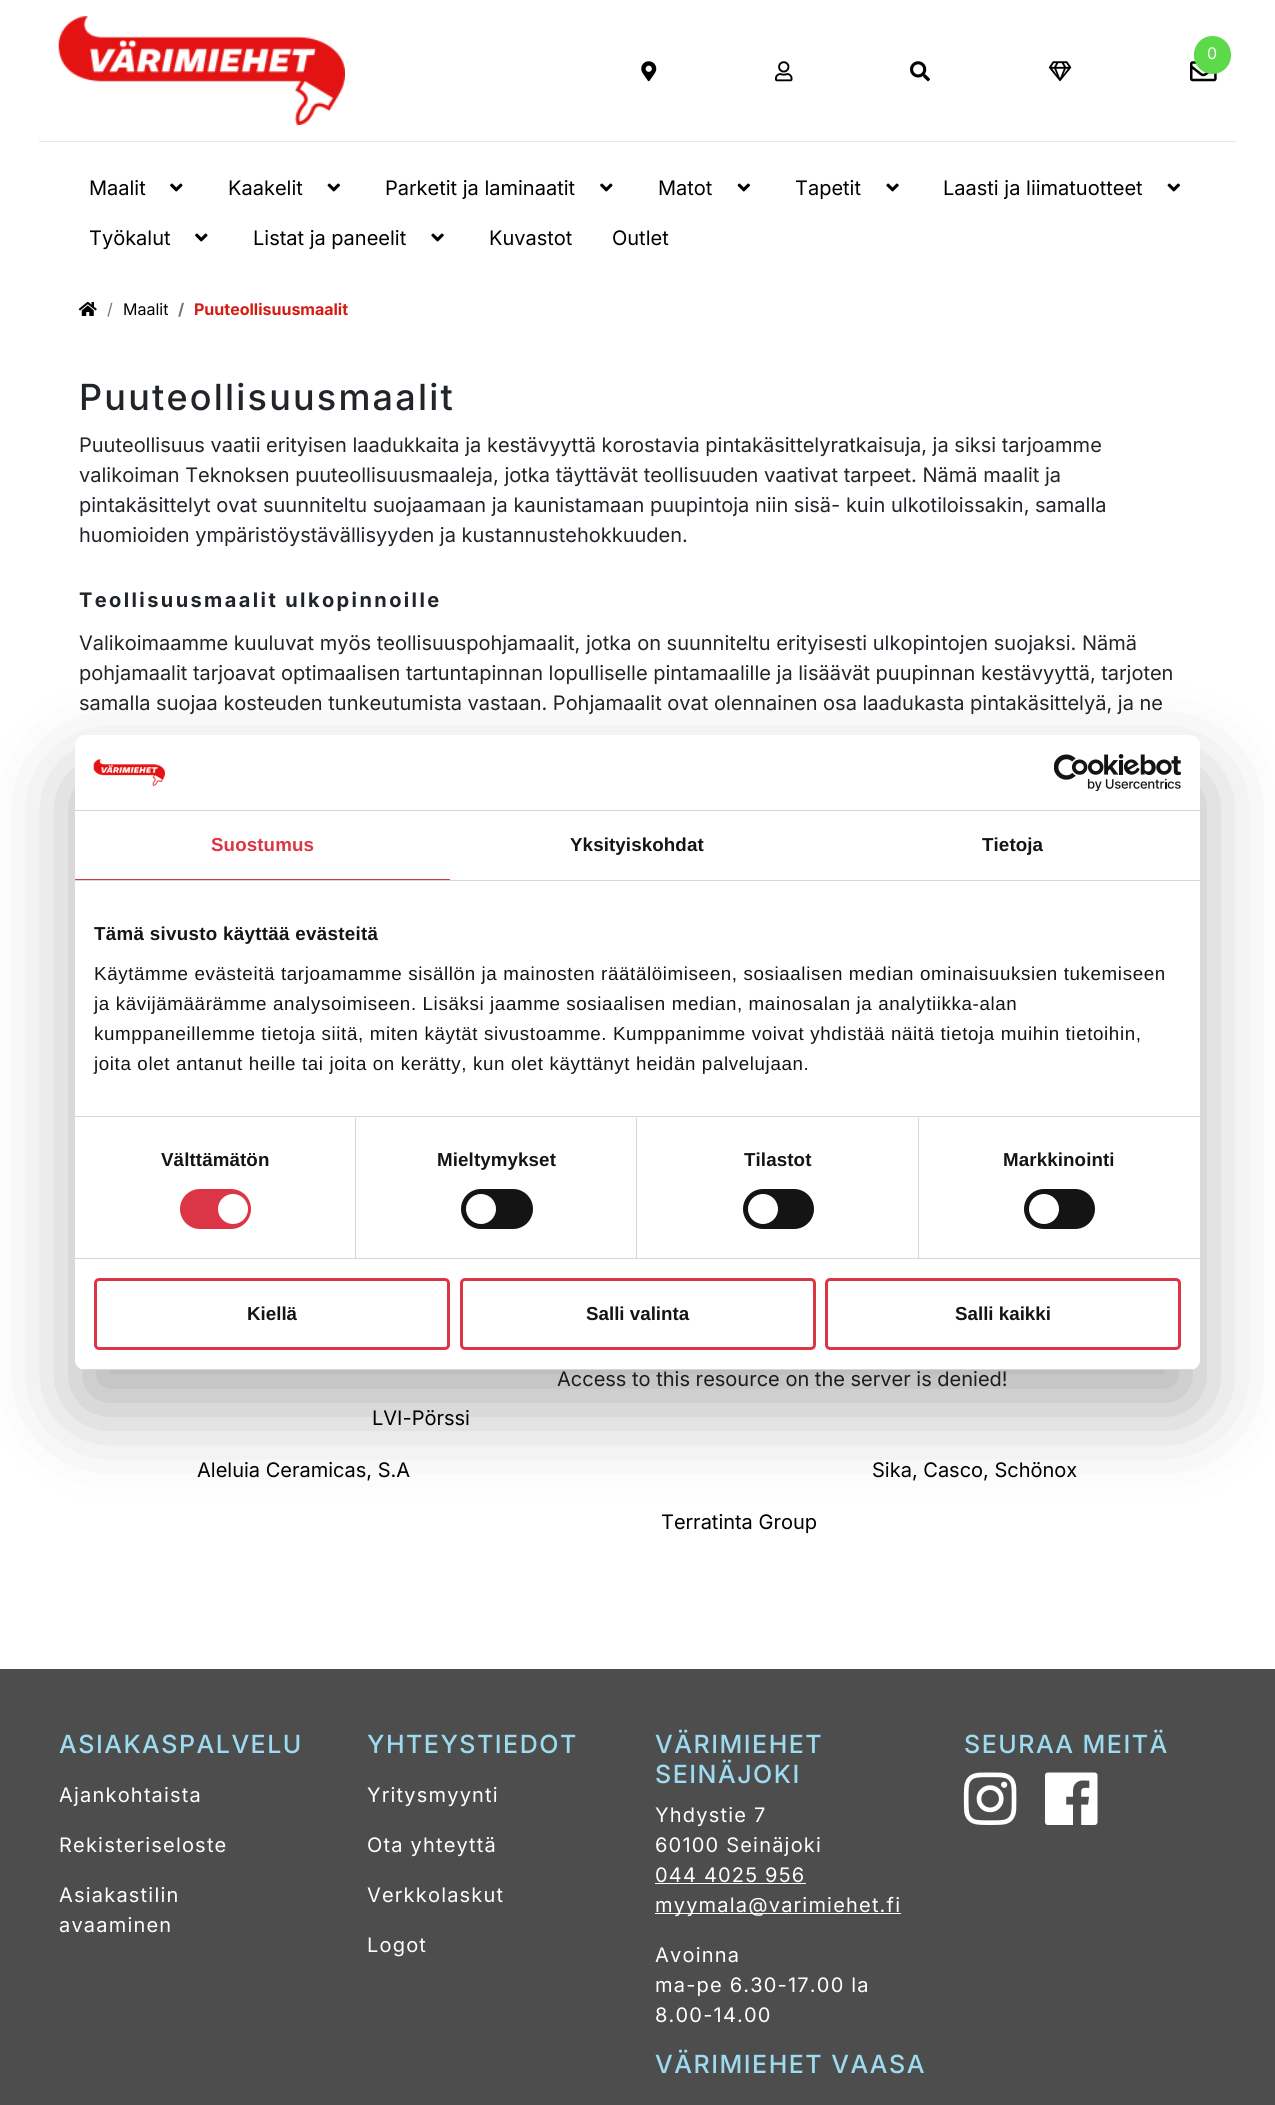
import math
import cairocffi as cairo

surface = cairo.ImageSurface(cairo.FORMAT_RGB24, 1275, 2105)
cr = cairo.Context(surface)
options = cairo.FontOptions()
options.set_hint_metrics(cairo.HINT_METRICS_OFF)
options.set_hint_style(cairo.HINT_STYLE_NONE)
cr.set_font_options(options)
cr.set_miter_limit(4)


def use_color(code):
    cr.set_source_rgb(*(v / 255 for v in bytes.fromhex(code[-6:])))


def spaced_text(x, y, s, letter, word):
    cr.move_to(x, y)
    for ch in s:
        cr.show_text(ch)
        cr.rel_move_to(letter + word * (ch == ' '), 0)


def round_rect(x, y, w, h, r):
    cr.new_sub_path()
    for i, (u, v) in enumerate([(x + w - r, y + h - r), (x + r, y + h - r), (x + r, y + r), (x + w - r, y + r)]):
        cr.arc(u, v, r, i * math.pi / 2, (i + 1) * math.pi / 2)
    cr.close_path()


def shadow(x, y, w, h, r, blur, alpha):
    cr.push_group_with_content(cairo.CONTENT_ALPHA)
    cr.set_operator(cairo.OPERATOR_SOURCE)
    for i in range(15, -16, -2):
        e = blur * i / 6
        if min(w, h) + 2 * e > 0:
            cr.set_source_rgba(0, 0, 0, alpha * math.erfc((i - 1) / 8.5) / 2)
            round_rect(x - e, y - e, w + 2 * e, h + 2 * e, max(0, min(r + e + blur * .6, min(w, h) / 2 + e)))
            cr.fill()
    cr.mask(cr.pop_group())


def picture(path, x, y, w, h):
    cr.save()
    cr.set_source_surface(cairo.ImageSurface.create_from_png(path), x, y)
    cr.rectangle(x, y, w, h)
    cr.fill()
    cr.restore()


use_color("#ffffff")
cr.paint()
picture("img1.png", 58, 16, 287, 109)
picture("img2.png", 1190, 61, 27, 21)
use_color("#5cda49")
round_rect(1194, 36, 37, 38, 18.5)
cr.fill()
cr.select_font_face("Inter")
cr.set_font_size(16)
use_color("#ffffff")
cr.move_to(1207, 59)
cr.show_text("0")
picture("img3.png", 641, 61, 16, 21)
picture("img4.png", 775, 61, 18, 21)
picture("img5.png", 910, 61, 20, 21)
picture("img6.png", 1048, 61, 24, 21)
use_color("#e6e6e6")
cr.rectangle(39, 141, 1197, 1)
cr.fill()
cr.set_font_size(20)
use_color("#000000")
cr.move_to(89, 195)
cr.show_text("Maalit")
picture("img7.png", 170, 183, 13, 9)
cr.move_to(228, 195)
cr.show_text("Kaakelit")
picture("img8.png", 327, 183, 13, 9)
cr.move_to(385, 195)
cr.show_text("Parketit ja laminaatit")
picture("img7.png", 600, 183, 13, 9)
cr.move_to(658, 195)
cr.show_text("Matot")
picture("img8.png", 737, 183, 13, 9)
cr.move_to(795, 195)
cr.show_text("Tapetit")
picture("img9.png", 886, 183, 13, 9)
cr.move_to(943, 195)
cr.show_text("Laasti ja liimatuotteet")
picture("img8.png", 1167, 183, 13, 9)
cr.move_to(89, 245)
cr.show_text("Työkalut")
picture("img7.png", 195, 233, 13, 9)
cr.move_to(253, 245)
cr.show_text("Listat ja paneelit")
picture("img9.png", 431, 233, 13, 9)
cr.move_to(489, 245)
cr.show_text("Kuvastot")
cr.move_to(612, 245)
cr.show_text("Outlet")
picture("img10.png", 78, 302, 19, 14)
cr.set_font_size(16)
use_color("#6c757d")
cr.move_to(107, 315)
cr.show_text("/")
use_color("#000000")
cr.move_to(123, 315)
cr.show_text("Maalit")
cr.select_font_face("Inter", cairo.FONT_SLANT_NORMAL, cairo.FONT_WEIGHT_BOLD)
use_color("#6c757d")
cr.move_to(178, 315)
cr.show_text("/")
use_color("#d51a10")
cr.move_to(194, 315)
cr.show_text("Puuteollisuusmaalit")
cr.select_font_face("Inter Medium")
cr.set_font_size(36)
use_color("#212529")
spaced_text(79, 410, "Puuteollisuusmaalit", 2.2, 0)
cr.select_font_face("Inter")
cr.set_font_size(20)
cr.move_to(79, 452)
cr.show_text("Puuteollisuus vaatii erityisen laadukkaita ja kestävyyttä korostavia pintakäsittelyratkaisuja, ja siksi tarjoamme")
cr.move_to(79, 482)
cr.show_text("valikoiman Teknoksen puuteollisuusmaaleja, jotka täyttävät teollisuuden vaativat tarpeet. Nämä maalit ja")
cr.move_to(79, 512)
cr.show_text("pintakäsittelyt ovat suunniteltu suojaamaan ja kaunistamaan puupintoja niin sisä- kuin ulkotiloissakin, samalla")
cr.move_to(79, 542)
cr.show_text("huomioiden ympäristöystävällisyyden ja kustannustehokkuuden.")
cr.select_font_face("Inter", cairo.FONT_SLANT_NORMAL, cairo.FONT_WEIGHT_BOLD)
spaced_text(79, 607, "Teollisuusmaalit ulkopinnoille", 2.4, 0)
cr.select_font_face("Inter")
cr.move_to(79, 650)
cr.show_text("Valikoimaamme kuuluvat myös teollisuuspohjamaalit, jotka on suunniteltu erityisesti ulkopintojen suojaksi. Nämä")
cr.move_to(79, 680)
cr.show_text("pohjamaalit tarjoavat optimaalisen tartuntapinnan lopulliselle pintamaalille ja lisäävät puupinnan kestävyyttä, tarjoten")
cr.move_to(79, 710)
cr.show_text("samalla suojaa kosteuden tunkeutumista vastaan. Pohjamaalit ovat olennainen osa laadukasta pintakäsittelyä, ja ne")
cr.move_to(557, 1386)
cr.show_text("Access to this resource on the server is denied!")
use_color("#000000")
cr.move_to(372, 1425)
cr.show_text("LVI-Pörssi")
cr.move_to(197, 1477)
cr.show_text("Aleluia Ceramicas, S.A")
cr.move_to(872, 1477)
cr.show_text("Sika, Casco, Schönox")
cr.move_to(661, 1529)
cr.show_text("Terratinta Group")
use_color("#000000")
shadow(75, 775, 1125, 635, 10, 42.5, 0.3)
use_color("#ffffff")
round_rect(75, 735, 1125, 635, 10)
cr.fill()
use_color("#d6d6d6")
cr.rectangle(75, 810, 1125, 1)
cr.fill()
picture("img11.png", 93, 759, 72, 28)
picture("img12.png", 1054, 754, 127, 37)
cr.rectangle(75, 880, 1125, 1)
cr.fill()
use_color("#dc3545")
cr.rectangle(75, 879, 375, 1)
cr.fill()
cr.select_font_face("Liberation Sans", cairo.FONT_SLANT_NORMAL, cairo.FONT_WEIGHT_BOLD)
cr.set_font_size(18.75)
spaced_text(211, 851, "Suostumus", 0.1, 0)
use_color("#141414")
spaced_text(570, 851, "Yksityiskohdat", 0.1, 0)
spaced_text(982, 851, "Tietoja", 0.1, 0)
use_color("#d6d6d6")
cr.rectangle(75, 1116, 1125, 1)
cr.fill()
use_color("#141414")
spaced_text(94, 940, "Tämä sivusto käyttää evästeitä", 0.3, 0)
cr.select_font_face("Liberation Sans")
spaced_text(94, 980, "Käytämme evästeitä tarjoamamme sisällön ja mainosten räätälöimiseen, sosiaalisen median ominaisuuksien tukemiseen", 0.62, 0)
spaced_text(94, 1010, "ja kävijämäärämme analysoimiseen. Lisäksi jaamme sosiaalisen median, mainosalan ja analytiikka-alan", 0.62, 0)
spaced_text(94, 1040, "kumppaneillemme tietoja siitä, miten käytät sivustoamme. Kumppanimme voivat yhdistää näitä tietoja muihin tietoihin,", 0.62, 0)
spaced_text(94, 1070, "joita olet antanut heille tai joita on kerätty, kun olet käyttänyt heidän palvelujaan.", 0.62, 0)
use_color("#d6d6d6")
cr.rectangle(75, 1258, 1125, 1)
cr.fill()
cr.rectangle(355, 1118, 1, 140)
cr.fill()
cr.select_font_face("Liberation Sans", cairo.FONT_SLANT_NORMAL, cairo.FONT_WEIGHT_BOLD)
use_color("#141414")
spaced_text(161, 1166, "Välttämätön", 0.1, 0)
use_color("#dc3545")
round_rect(180, 1189, 71, 40, 20)
cr.fill()
use_color("#ffffff")
cr.arc(233, 1209, 15, 0, 2 * math.pi)
cr.fill()
use_color("#d6d6d6")
cr.rectangle(636, 1118, 1, 140)
cr.fill()
use_color("#141414")
spaced_text(437, 1166, "Mieltymykset", 0.1, 0)
round_rect(461, 1189, 72, 40, 20)
cr.fill()
use_color("#ffffff")
cr.arc(481, 1209, 15, 0, 2 * math.pi)
cr.fill()
use_color("#d6d6d6")
cr.rectangle(918, 1118, 1, 140)
cr.fill()
use_color("#141414")
spaced_text(744, 1166, "Tilastot", 0.1, 0)
round_rect(743, 1189, 71, 40, 20)
cr.fill()
use_color("#ffffff")
cr.arc(763, 1209, 15, 0, 2 * math.pi)
cr.fill()
use_color("#141414")
spaced_text(1003, 1166, "Markkinointi", 0.1, 0)
round_rect(1024, 1189, 71, 40, 20)
cr.fill()
use_color("#ffffff")
cr.arc(1044, 1209, 15, 0, 2 * math.pi)
cr.fill()
cr.save()
round_rect(75, 735, 1125, 635, 10)
cr.clip()
use_color("#d6d6d6")
cr.rectangle(75, 1369, 1125, 1)
cr.fill()
cr.restore()
round_rect(95.5, 1279.5, 353, 69, 3.5)
use_color("#dc3545")
cr.set_line_width(3)
cr.stroke()
use_color("#141414")
cr.move_to(247, 1320)
cr.show_text("Kiellä")
round_rect(461.5, 1279.5, 353, 69, 3.5)
use_color("#dc3545")
cr.stroke()
use_color("#141414")
cr.move_to(586, 1320)
cr.show_text("Salli valinta")
round_rect(826.5, 1279.5, 353, 69, 3.5)
use_color("#dc3545")
cr.stroke()
use_color("#141414")
cr.move_to(955, 1320)
cr.show_text("Salli kaikki")
use_color("#4d4d4d")
cr.rectangle(0, 1669, 1275, 436)
cr.fill()
cr.select_font_face("Inter Medium")
cr.set_font_size(25)
use_color("#9ddcf0")
spaced_text(59, 1753, "ASIAKASPALVELU", 1.5, 0)
cr.select_font_face("Inter")
cr.set_font_size(20)
use_color("#ffffff")
spaced_text(59, 1802, "Ajankohtaista", 1.2, 0)
spaced_text(59, 1852, "Rekisteriseloste", 1.2, 0)
spaced_text(59, 1902, "Asiakastilin", 1.2, 0)
spaced_text(59, 1932, "avaaminen", 1.2, 0)
cr.select_font_face("Inter Medium")
cr.set_font_size(25)
use_color("#9ddcf0")
spaced_text(367, 1753, "YHTEYSTIEDOT", 1.5, 0)
cr.select_font_face("Inter")
cr.set_font_size(20)
use_color("#ffffff")
spaced_text(367, 1802, "Yritysmyynti", 1.2, 0)
spaced_text(367, 1852, "Ota yhteyttä", 1.2, 0)
spaced_text(367, 1902, "Verkkolaskut", 1.2, 0)
spaced_text(367, 1952, "Logot", 1.2, 0)
cr.select_font_face("Inter Medium")
cr.set_font_size(25)
use_color("#9ddcf0")
spaced_text(655, 1753, "VÄRIMIEHET", 1.5, 0)
spaced_text(655, 1783, "SEINÄJOKI", 1.5, 0)
cr.select_font_face("Inter")
cr.set_font_size(20)
use_color("#ffffff")
spaced_text(655, 1822, "Yhdystie 7", 1.2, 0)
spaced_text(655, 1852, "60100 Seinäjoki", 1.2, 0)
spaced_text(655, 1882, "044 4025 956", 1.2, 0)
cr.rectangle(655, 1883, 151, 1)
cr.fill()
cr.rectangle(655, 1913, 246, 1)
cr.fill()
spaced_text(655, 1912, "myymala@varimiehet.fi", 1.2, 0)
spaced_text(655, 1962, "Avoinna", 1.2, 0)
spaced_text(655, 1992, "ma-pe 6.30-17.00 la", 1.2, 0)
spaced_text(655, 2022, "8.00-14.00", 1.2, 0)
cr.select_font_face("Inter Medium")
cr.set_font_size(25)
use_color("#9ddcf0")
spaced_text(655, 2073, "VÄRIMIEHET VAASA", 1.5, 0)
spaced_text(964, 1753, "SEURAA MEITÄ", 1.5, 0)
picture("img13.png", 963, 1772, 54, 53)
picture("img14.png", 1045, 1772, 53, 53)
surface.write_to_png("result.png")
